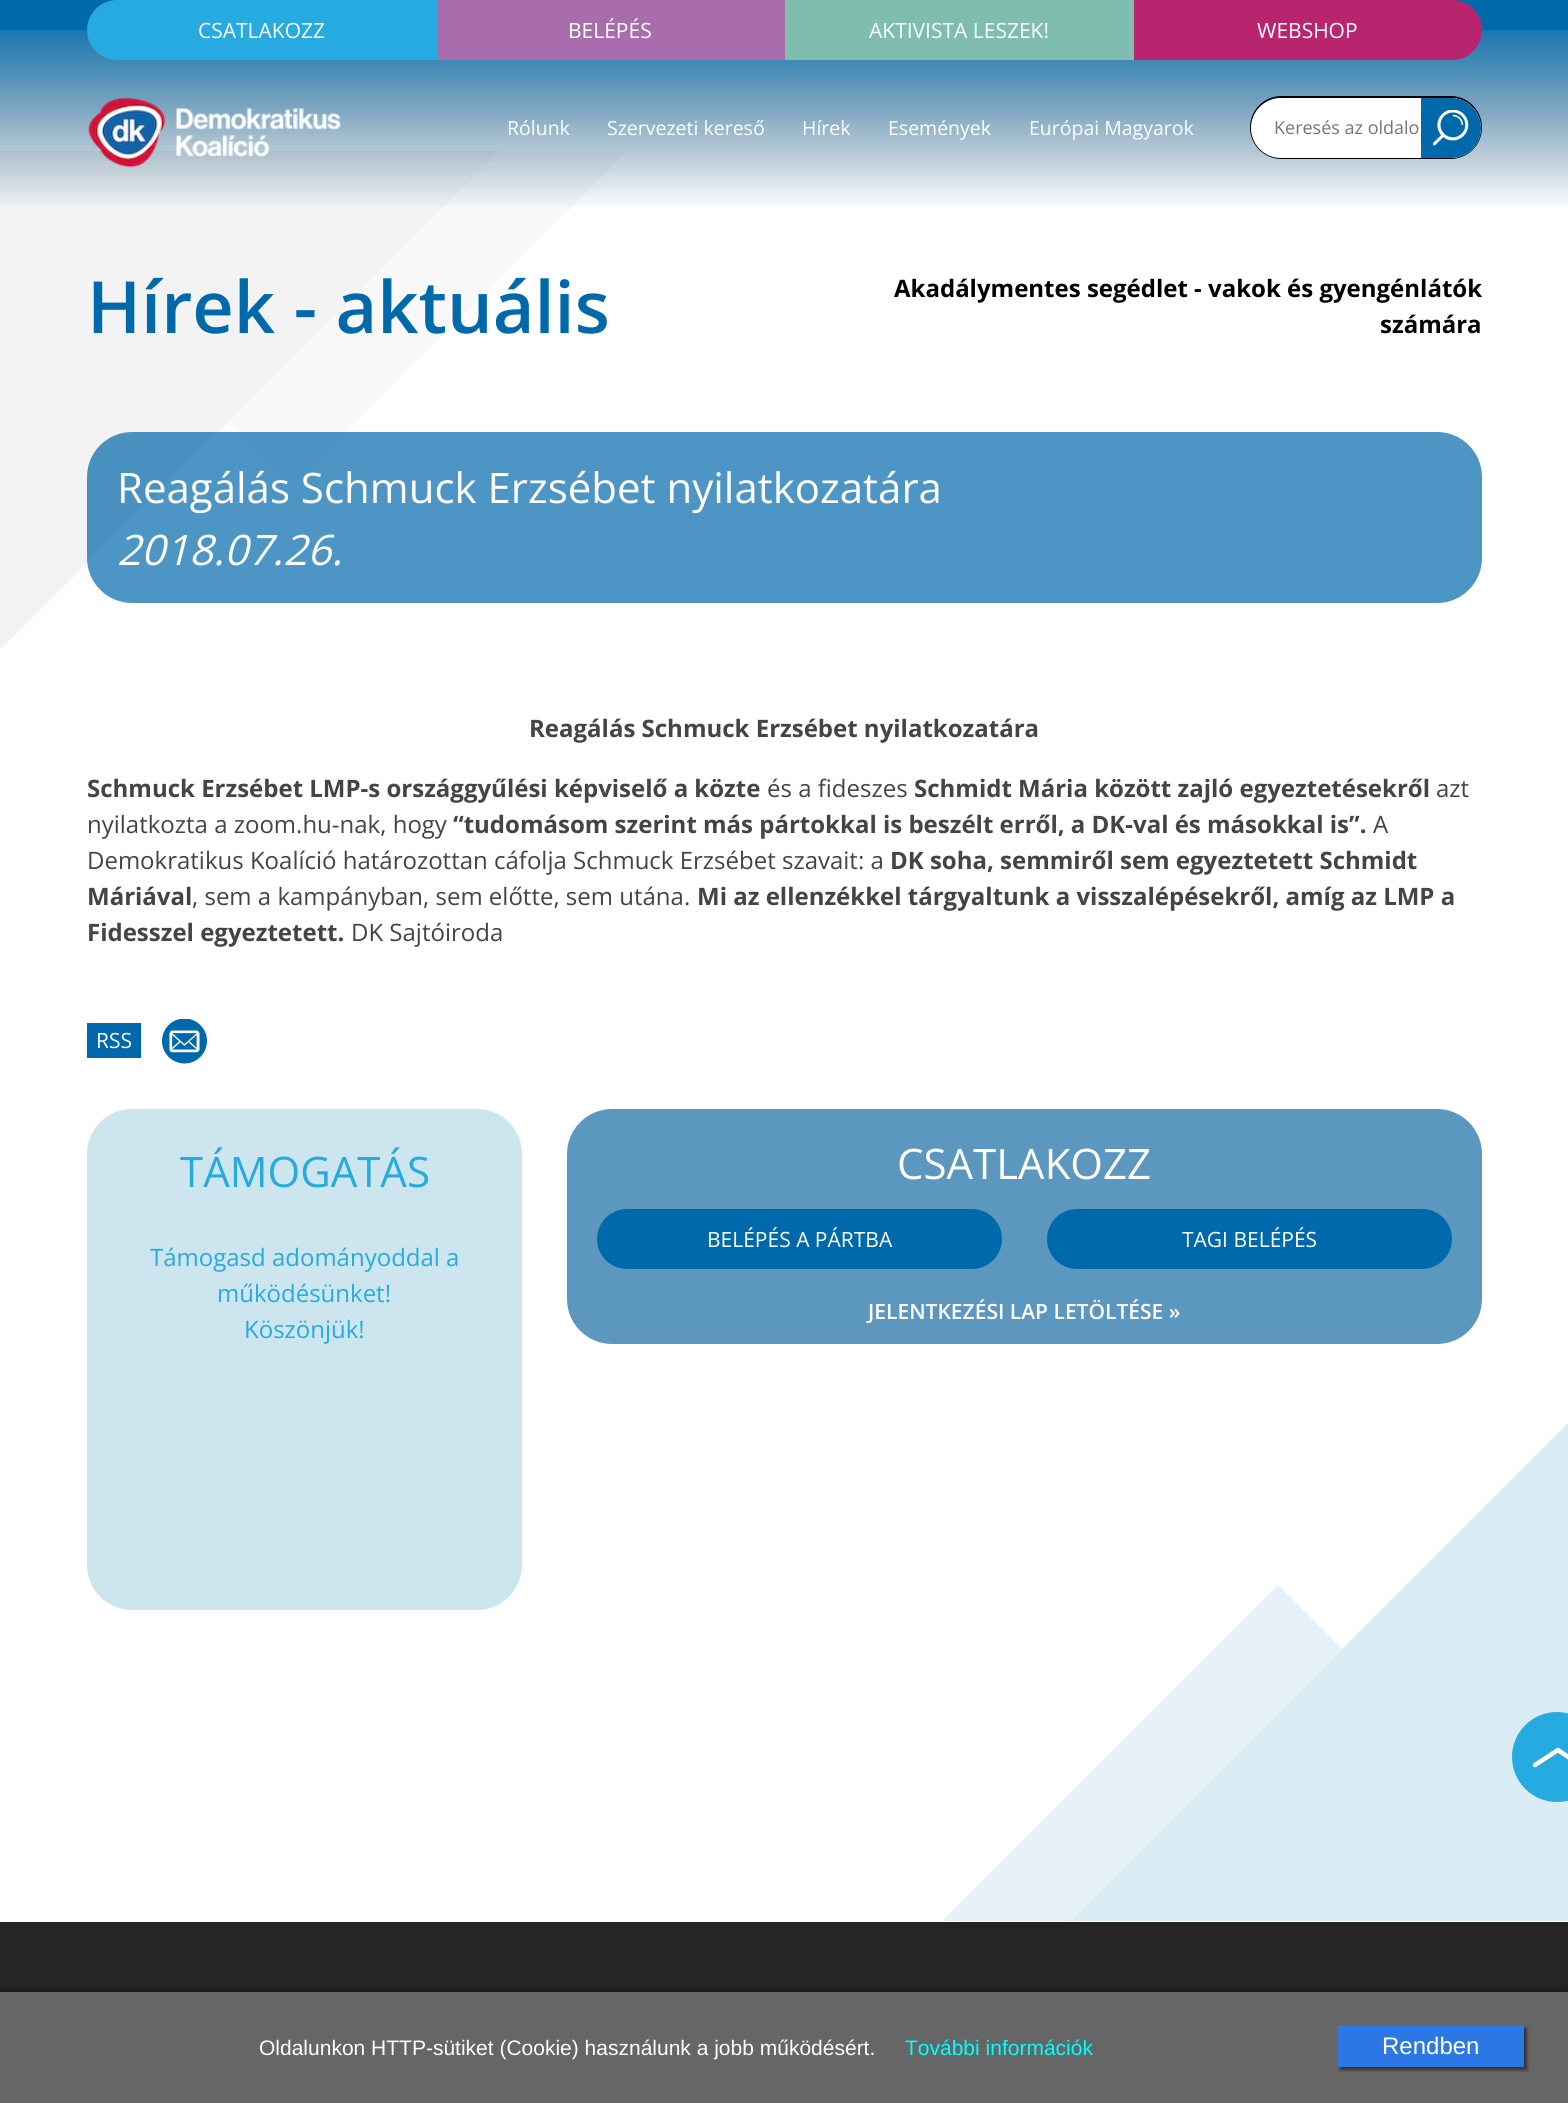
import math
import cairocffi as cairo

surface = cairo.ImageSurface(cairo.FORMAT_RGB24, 1568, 2103)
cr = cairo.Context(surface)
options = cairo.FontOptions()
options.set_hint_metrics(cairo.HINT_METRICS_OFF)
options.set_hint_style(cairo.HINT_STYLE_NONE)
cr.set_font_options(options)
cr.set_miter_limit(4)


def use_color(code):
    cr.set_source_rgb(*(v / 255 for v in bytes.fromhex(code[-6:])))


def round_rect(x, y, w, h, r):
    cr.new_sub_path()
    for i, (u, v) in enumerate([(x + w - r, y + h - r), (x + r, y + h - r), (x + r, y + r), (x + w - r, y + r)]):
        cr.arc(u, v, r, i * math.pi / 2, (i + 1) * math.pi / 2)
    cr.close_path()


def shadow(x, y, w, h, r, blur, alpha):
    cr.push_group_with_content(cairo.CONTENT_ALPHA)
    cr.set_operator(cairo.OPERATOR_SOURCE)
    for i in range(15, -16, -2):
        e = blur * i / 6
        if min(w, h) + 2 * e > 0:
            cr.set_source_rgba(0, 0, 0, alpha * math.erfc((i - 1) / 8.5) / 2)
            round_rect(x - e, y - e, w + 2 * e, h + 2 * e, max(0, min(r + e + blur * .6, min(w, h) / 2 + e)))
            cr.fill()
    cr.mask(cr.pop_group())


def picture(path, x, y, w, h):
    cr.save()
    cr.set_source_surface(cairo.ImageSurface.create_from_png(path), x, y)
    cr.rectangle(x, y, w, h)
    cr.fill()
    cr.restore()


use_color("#ffffff")
cr.paint()
use_color("#f8f8f8")
cr.new_path()
cr.move_to(291, 487)
cr.line_to(227, 422)
cr.line_to(499, 151)
cr.line_to(628, 151)
cr.close_path()
cr.fill()
use_color("#f3f3f3")
cr.new_path()
cr.move_to(0, 151)
cr.line_to(500, 151)
cr.line_to(0, 650)
cr.close_path()
cr.fill()
picture("img1.png", 0, 30, 1568, 176)
use_color("#0069ab")
cr.rectangle(0, 0, 1568, 30)
cr.fill()
use_color("#26abe0")
cr.new_path()
cr.move_to(117, 0)
cr.line_to(437, 0)
cr.line_to(437, 60)
cr.line_to(117, 60)
cr.curve_to(100.5, 60, 87, 46.5, 87, 30)
cr.curve_to(87, 13.5, 100.5, 0, 117, 0)
cr.close_path()
cr.fill()
cr.select_font_face("Open Sans")
cr.set_font_size(21)
use_color("#ffffff")
cr.move_to(198, 38)
cr.show_text("CSATLAKOZZ")
use_color("#a96dad")
cr.rectangle(437, 0, 348, 60)
cr.fill()
use_color("#ffffff")
cr.move_to(568, 38)
cr.show_text("BELÉPÉS")
use_color("#7fbeaf")
cr.rectangle(785, 0, 349, 60)
cr.fill()
use_color("#ffffff")
cr.move_to(869, 38)
cr.show_text("AKTIVISTA LESZEK!")
use_color("#b9246f")
cr.new_path()
cr.move_to(1134, 0)
cr.line_to(1452, 0)
cr.curve_to(1468.5, 0, 1482, 13.5, 1482, 30)
cr.curve_to(1482, 46.5, 1468.5, 60, 1452, 60)
cr.line_to(1134, 60)
cr.close_path()
cr.fill()
use_color("#ffffff")
cr.move_to(1257, 38)
cr.show_text("WEBSHOP")
picture("img2.png", 88, 97, 253, 71)
cr.set_font_size(19.5)
cr.move_to(507, 135)
cr.show_text("Rólunk")
cr.move_to(607, 135)
cr.show_text("Szervezeti kereső")
cr.move_to(802, 135)
cr.show_text("Hírek")
cr.move_to(888, 135)
cr.show_text("Események")
cr.move_to(1029, 135)
cr.show_text("Európai Magyarok")
round_rect(1251, 97, 230, 61, 30.5)
use_color("#000000")
cr.stroke()
use_color("#ffffff")
round_rect(1251, 98, 230, 60, 30)
cr.fill()
cr.set_font_size(18)
use_color("#757575")
cr.move_to(1274, 134)
cr.show_text("Keresés az oldalo")
use_color("#0069ab")
cr.new_path()
cr.move_to(1421, 98)
cr.line_to(1451, 98)
cr.curve_to(1467.5, 98, 1481, 111.5, 1481, 128)
cr.curve_to(1481, 144.5, 1467.5, 158, 1451, 158)
cr.line_to(1421, 158)
cr.close_path()
cr.fill()
picture("img3.png", 1433, 110, 36, 36)
use_color("#e6f2f7")
cr.new_path()
cr.move_to(1278, 1585)
cr.line_to(1342, 1649)
cr.line_to(1070, 1921)
cr.line_to(942, 1921)
cr.close_path()
cr.fill()
cr.set_source_rgba(0.804, 0.898, 0.937, 0.75)
cr.new_path()
cr.move_to(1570, 1921)
cr.line_to(1070, 1921)
cr.line_to(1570, 1421)
cr.close_path()
cr.fill()
cr.select_font_face("Open Sans SemiBold")
cr.set_font_size(72)
use_color("#0069ab")
cr.move_to(87, 333)
cr.show_text("Hírek - aktuális")
cr.select_font_face("Open Sans", cairo.FONT_SLANT_NORMAL, cairo.FONT_WEIGHT_BOLD)
cr.set_font_size(24)
use_color("#000000")
cr.move_to(894, 297)
cr.show_text("Akadálymentes segédlet - vakok és gyengénlátók")
cr.move_to(1380, 333)
cr.show_text("számára")
cr.set_source_rgba(0, 0.412, 0.671, 0.7)
round_rect(87, 432, 1395, 171, 45)
cr.fill()
cr.select_font_face("Open Sans")
cr.set_font_size(42)
use_color("#ffffff")
cr.move_to(117, 503)
cr.show_text("Reagálás Schmuck Erzsébet nyilatkozatára")
cr.select_font_face("Open Sans", cairo.FONT_SLANT_ITALIC)
cr.move_to(117, 565)
cr.show_text("2018.07.26.")
cr.select_font_face("Open Sans", cairo.FONT_SLANT_NORMAL, cairo.FONT_WEIGHT_BOLD)
cr.set_font_size(24)
use_color("#444444")
cr.move_to(529, 737)
cr.show_text("Reagálás Schmuck Erzsébet nyilatkozatára")
cr.move_to(87, 797)
cr.show_text("Schmuck Erzsébet LMP-s országgyűlési képviselő a közte")
cr.select_font_face("Open Sans")
cr.move_to(767, 797)
cr.show_text("és a fideszes")
cr.select_font_face("Open Sans", cairo.FONT_SLANT_NORMAL, cairo.FONT_WEIGHT_BOLD)
cr.move_to(914, 797)
cr.show_text("Schmidt Mária között zajló egyeztetésekről")
cr.select_font_face("Open Sans")
cr.move_to(1436, 797)
cr.show_text("azt")
cr.move_to(87, 833)
cr.show_text("nyilatkozta a zoom.hu-nak, hogy")
cr.select_font_face("Open Sans", cairo.FONT_SLANT_NORMAL, cairo.FONT_WEIGHT_BOLD)
cr.move_to(453, 833)
cr.show_text("“tudomásom szerint más pártokkal is beszélt erről, a DK-val és másokkal is”.")
cr.select_font_face("Open Sans")
cr.move_to(1373, 833)
cr.show_text("A")
cr.move_to(87, 869)
cr.show_text("Demokratikus Koalíció határozottan cáfolja Schmuck Erzsébet szavait: a")
cr.select_font_face("Open Sans", cairo.FONT_SLANT_NORMAL, cairo.FONT_WEIGHT_BOLD)
cr.move_to(890, 869)
cr.show_text("DK soha, semmiről sem egyeztetett Schmidt")
cr.move_to(87, 905)
cr.show_text("Máriával")
cr.select_font_face("Open Sans")
cr.move_to(192, 905)
cr.show_text(", sem a kampányban, sem előtte, sem utána.")
cr.select_font_face("Open Sans", cairo.FONT_SLANT_NORMAL, cairo.FONT_WEIGHT_BOLD)
cr.move_to(697, 905)
cr.show_text("Mi az ellenzékkel tárgyaltunk a visszalépésekről, amíg az LMP a")
cr.move_to(87, 941)
cr.show_text("Fidesszel egyeztetett.")
cr.select_font_face("Open Sans")
cr.move_to(351, 941)
cr.show_text("DK Sajtóiroda")
use_color("#0069ab")
cr.rectangle(87, 1023, 54, 35)
cr.fill()
cr.set_font_size(21)
use_color("#ffffff")
cr.move_to(96, 1048)
cr.show_text("RSS")
picture("img4.png", 162, 1019, 45, 45)
use_color("#cde5ef")
round_rect(87, 1109, 435, 501, 45)
cr.fill()
cr.set_font_size(42)
use_color("#26abe0")
cr.move_to(180, 1187)
cr.show_text("TÁMOGATÁS")
cr.set_font_size(24)
cr.move_to(150, 1266)
cr.show_text("Támogasd adományoddal a")
cr.move_to(217, 1302)
cr.show_text("működésünket!")
cr.move_to(244, 1338)
cr.show_text("Köszönjük!")
use_color("#5c97bf")
round_rect(567, 1109, 915, 235, 45)
cr.fill()
cr.set_font_size(42)
use_color("#ffffff")
cr.move_to(897, 1179)
cr.show_text("CSATLAKOZZ")
use_color("#0069ab")
round_rect(597, 1209, 405, 60, 30)
cr.fill()
cr.set_font_size(21)
use_color("#ffffff")
cr.move_to(707, 1247)
cr.show_text("BELÉPÉS A PÁRTBA")
use_color("#0069ab")
round_rect(1047, 1209, 405, 60, 30)
cr.fill()
use_color("#ffffff")
cr.move_to(1182, 1247)
cr.show_text("TAGI BELÉPÉS")
cr.select_font_face("Open Sans SemiBold")
cr.move_to(868, 1319)
cr.show_text("JELENTKEZÉSI LAP LETÖLTÉSE »")
use_color("#26abe0")
cr.new_path()
cr.arc(1557, 1757, 45, 0, 2 * math.pi)
cr.fill()
cr.new_path()
cr.move_to(1535, 1765)
cr.line_to(1558, 1750)
cr.line_to(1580, 1765)
use_color("#ffffff")
cr.set_line_width(4.5)
cr.set_line_cap(cairo.LINE_CAP_ROUND)
cr.set_line_join(cairo.LINE_JOIN_ROUND)
cr.stroke()
use_color("#252525")
cr.rectangle(0, 1922, 1568, 70)
cr.fill()
use_color("#000000")
shadow(-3, 1992, 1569, 111, 0, 4, 0.5)
use_color("#666666")
cr.rectangle(0, 1992, 1568, 111)
cr.fill()
cr.select_font_face("Liberation Sans")
use_color("#ffffff")
cr.move_to(259, 2055)
cr.show_text("Oldalunkon HTTP-sütiket (Cookie) használunk a jobb működésért.")
use_color("#00ffff")
cr.move_to(905, 2055)
cr.show_text("További információk")
use_color("#000000")
shadow(1340, 2028, 187, 42, 0, 1.5, 0.5)
use_color("#2b78e4")
cr.rectangle(1337, 2025, 187, 42)
cr.fill()
cr.set_font_size(24)
use_color("#ffffff")
cr.move_to(1382, 2054)
cr.show_text("Rendben")
surface.write_to_png("result.png")
